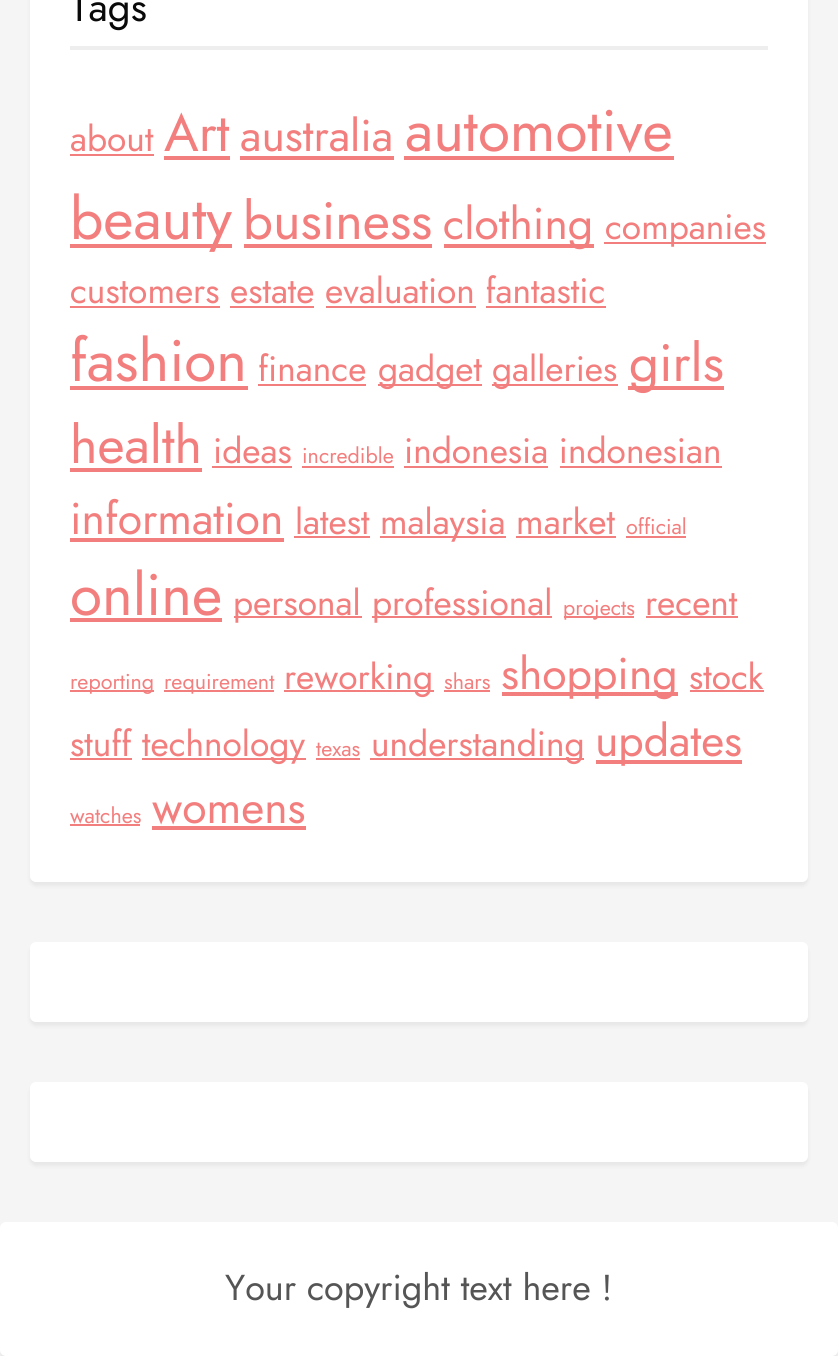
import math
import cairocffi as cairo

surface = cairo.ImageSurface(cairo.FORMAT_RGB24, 838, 1356)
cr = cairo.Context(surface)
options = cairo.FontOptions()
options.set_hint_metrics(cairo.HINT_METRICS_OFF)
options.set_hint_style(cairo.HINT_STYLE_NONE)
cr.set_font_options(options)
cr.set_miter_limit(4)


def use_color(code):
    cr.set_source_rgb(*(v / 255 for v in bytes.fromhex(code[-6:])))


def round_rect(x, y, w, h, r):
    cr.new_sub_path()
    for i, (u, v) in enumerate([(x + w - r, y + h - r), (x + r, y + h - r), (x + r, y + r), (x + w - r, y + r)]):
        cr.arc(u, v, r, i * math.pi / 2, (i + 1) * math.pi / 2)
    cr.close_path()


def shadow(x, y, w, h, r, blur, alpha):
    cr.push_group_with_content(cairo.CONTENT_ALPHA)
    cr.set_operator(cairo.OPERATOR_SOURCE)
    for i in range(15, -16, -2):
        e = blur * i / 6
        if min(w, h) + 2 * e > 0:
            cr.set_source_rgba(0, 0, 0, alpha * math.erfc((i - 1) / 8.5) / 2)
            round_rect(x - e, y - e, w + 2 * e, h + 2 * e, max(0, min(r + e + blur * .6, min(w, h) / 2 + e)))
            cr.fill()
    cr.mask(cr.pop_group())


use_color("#f5f5f5")
cr.paint()
use_color("#000000")
shadow(30, -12, 778, 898, 6, 2, 0.06)
use_color("#ffffff")
round_rect(30, -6, 778, 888, 6)
cr.fill()
use_color("#eeeeee")
cr.rectangle(70, 46, 698, 4)
cr.fill()
cr.select_font_face("Jost")
cr.set_font_size(40)
use_color("#0a0a0a")
cr.move_to(70, 21)
cr.show_text("Tags")
cr.set_font_size(35.3)
use_color("#f37e7e")
cr.move_to(70, 151)
cr.show_text("about")
cr.rectangle(70, 154, 84, 2)
cr.fill()
cr.set_font_size(52.5)
cr.move_to(164, 151)
cr.show_text("Art")
cr.rectangle(164, 156, 66, 4)
cr.fill()
cr.set_font_size(44.5)
cr.move_to(240, 151)
cr.show_text("australia")
cr.rectangle(240, 156, 154, 4)
cr.fill()
cr.set_font_size(58.5)
cr.move_to(405, 151)
cr.show_text("automotive")
cr.rectangle(404, 156, 270, 4)
cr.fill()
cr.rectangle(70, 244, 162, 4)
cr.fill()
cr.move_to(70, 239)
cr.show_text("beauty")
cr.set_font_size(52.5)
cr.move_to(243, 239)
cr.show_text("business")
cr.rectangle(244, 244, 188, 4)
cr.fill()
cr.rectangle(444, 244, 150, 4)
cr.fill()
cr.set_font_size(44.5)
cr.move_to(443, 239)
cr.show_text("clothing")
cr.rectangle(604, 242, 162, 2)
cr.fill()
cr.set_font_size(35.3)
cr.move_to(605, 239)
cr.show_text("companies")
cr.move_to(70, 303)
cr.show_text("customers estate evaluation fantastic")
cr.rectangle(70, 306, 150, 2)
cr.fill()
cr.rectangle(230, 306, 84, 2)
cr.fill()
cr.rectangle(326, 306, 150, 2)
cr.fill()
cr.rectangle(486, 306, 120, 2)
cr.fill()
cr.set_font_size(58.5)
cr.move_to(70, 381)
cr.show_text("fashion")
cr.rectangle(70, 386, 178, 4)
cr.fill()
cr.set_font_size(35.3)
cr.move_to(258, 381)
cr.show_text("finance")
cr.rectangle(258, 384, 108, 2)
cr.fill()
cr.rectangle(378, 384, 104, 2)
cr.fill()
cr.move_to(378, 381)
cr.show_text("gadget")
cr.rectangle(492, 384, 126, 2)
cr.fill()
cr.move_to(492, 381)
cr.show_text("galleries")
cr.rectangle(628, 386, 96, 4)
cr.fill()
cr.set_font_size(52.5)
cr.move_to(629, 381)
cr.show_text("girls")
cr.move_to(70, 463)
cr.show_text("health")
cr.rectangle(70, 468, 132, 4)
cr.fill()
cr.set_font_size(35.3)
cr.move_to(213, 463)
cr.show_text("ideas")
cr.rectangle(212, 466, 80, 2)
cr.fill()
cr.set_font_size(21.5)
cr.move_to(302, 463)
cr.show_text("incredible")
cr.rectangle(302, 466, 92, 2)
cr.fill()
cr.set_font_size(35.3)
cr.move_to(404, 463)
cr.show_text("indonesia indonesian")
cr.rectangle(404, 466, 144, 2)
cr.fill()
cr.rectangle(560, 466, 162, 2)
cr.fill()
cr.set_font_size(44.5)
cr.move_to(70, 534)
cr.show_text("information")
cr.rectangle(70, 538, 214, 4)
cr.fill()
cr.set_font_size(35.3)
cr.move_to(295, 534)
cr.show_text("latest")
cr.rectangle(294, 536, 76, 2)
cr.fill()
cr.rectangle(380, 536, 126, 2)
cr.fill()
cr.move_to(380, 534)
cr.show_text("malaysia market")
cr.set_font_size(21.5)
cr.move_to(626, 534)
cr.show_text("official")
cr.rectangle(626, 536, 60, 2)
cr.fill()
cr.rectangle(516, 536, 100, 2)
cr.fill()
cr.set_font_size(58.5)
cr.move_to(70, 615)
cr.show_text("online")
cr.rectangle(70, 618, 152, 4)
cr.fill()
cr.rectangle(234, 616, 128, 2)
cr.fill()
cr.set_font_size(35.3)
cr.move_to(233, 615)
cr.show_text("personal")
cr.rectangle(372, 616, 180, 2)
cr.fill()
cr.move_to(372, 615)
cr.show_text("professional")
cr.rectangle(564, 616, 70, 2)
cr.fill()
cr.set_font_size(21.5)
cr.move_to(563, 615)
cr.show_text("projects")
cr.set_font_size(35.3)
cr.move_to(645, 615)
cr.show_text("recent")
cr.rectangle(646, 616, 92, 2)
cr.fill()
cr.rectangle(70, 690, 84, 2)
cr.fill()
cr.set_font_size(21.5)
cr.move_to(70, 689)
cr.show_text("reporting")
cr.rectangle(164, 690, 110, 2)
cr.fill()
cr.move_to(164, 689)
cr.show_text("requirement")
cr.rectangle(284, 690, 150, 2)
cr.fill()
cr.set_font_size(35.3)
cr.move_to(284, 689)
cr.show_text("reworking")
cr.set_font_size(21.5)
cr.move_to(444, 689)
cr.show_text("shars")
cr.rectangle(444, 690, 46, 2)
cr.fill()
cr.rectangle(502, 692, 176, 4)
cr.fill()
cr.set_font_size(44.5)
cr.move_to(501, 689)
cr.show_text("shopping")
cr.set_font_size(35.3)
cr.move_to(689, 689)
cr.show_text("stock")
cr.rectangle(690, 690, 74, 2)
cr.fill()
cr.move_to(70, 756)
cr.show_text("stuff")
cr.rectangle(70, 758, 62, 2)
cr.fill()
cr.rectangle(142, 758, 164, 2)
cr.fill()
cr.move_to(142, 756)
cr.show_text("technology")
cr.set_font_size(21.5)
cr.move_to(316, 756)
cr.show_text("texas")
cr.rectangle(316, 758, 44, 2)
cr.fill()
cr.rectangle(370, 758, 214, 2)
cr.fill()
cr.set_font_size(35.3)
cr.move_to(371, 756)
cr.show_text("understanding")
cr.rectangle(596, 760, 146, 4)
cr.fill()
cr.set_font_size(44.5)
cr.move_to(595, 756)
cr.show_text("updates")
cr.set_font_size(21.5)
cr.move_to(70, 823)
cr.show_text("watches")
cr.rectangle(70, 824, 70, 2)
cr.fill()
cr.set_font_size(44.5)
cr.move_to(152, 823)
cr.show_text("womens")
cr.rectangle(152, 826, 154, 4)
cr.fill()
use_color("#000000")
shadow(30, 946, 778, 80, 6, 2, 0.06)
use_color("#ffffff")
round_rect(30, 942, 778, 80, 6)
cr.fill()
use_color("#000000")
shadow(30, 1086, 778, 80, 6, 2, 0.06)
use_color("#ffffff")
round_rect(30, 1082, 778, 80, 6)
cr.fill()
use_color("#000000")
shadow(0, 1226, 838, 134, 6, 2, 0.06)
use_color("#ffffff")
round_rect(0, 1222, 838, 134, 6)
cr.fill()
cr.set_font_size(36)
use_color("#555555")
cr.move_to(225, 1300)
cr.show_text("Your copyright text here !")
surface.write_to_png("result.png")
